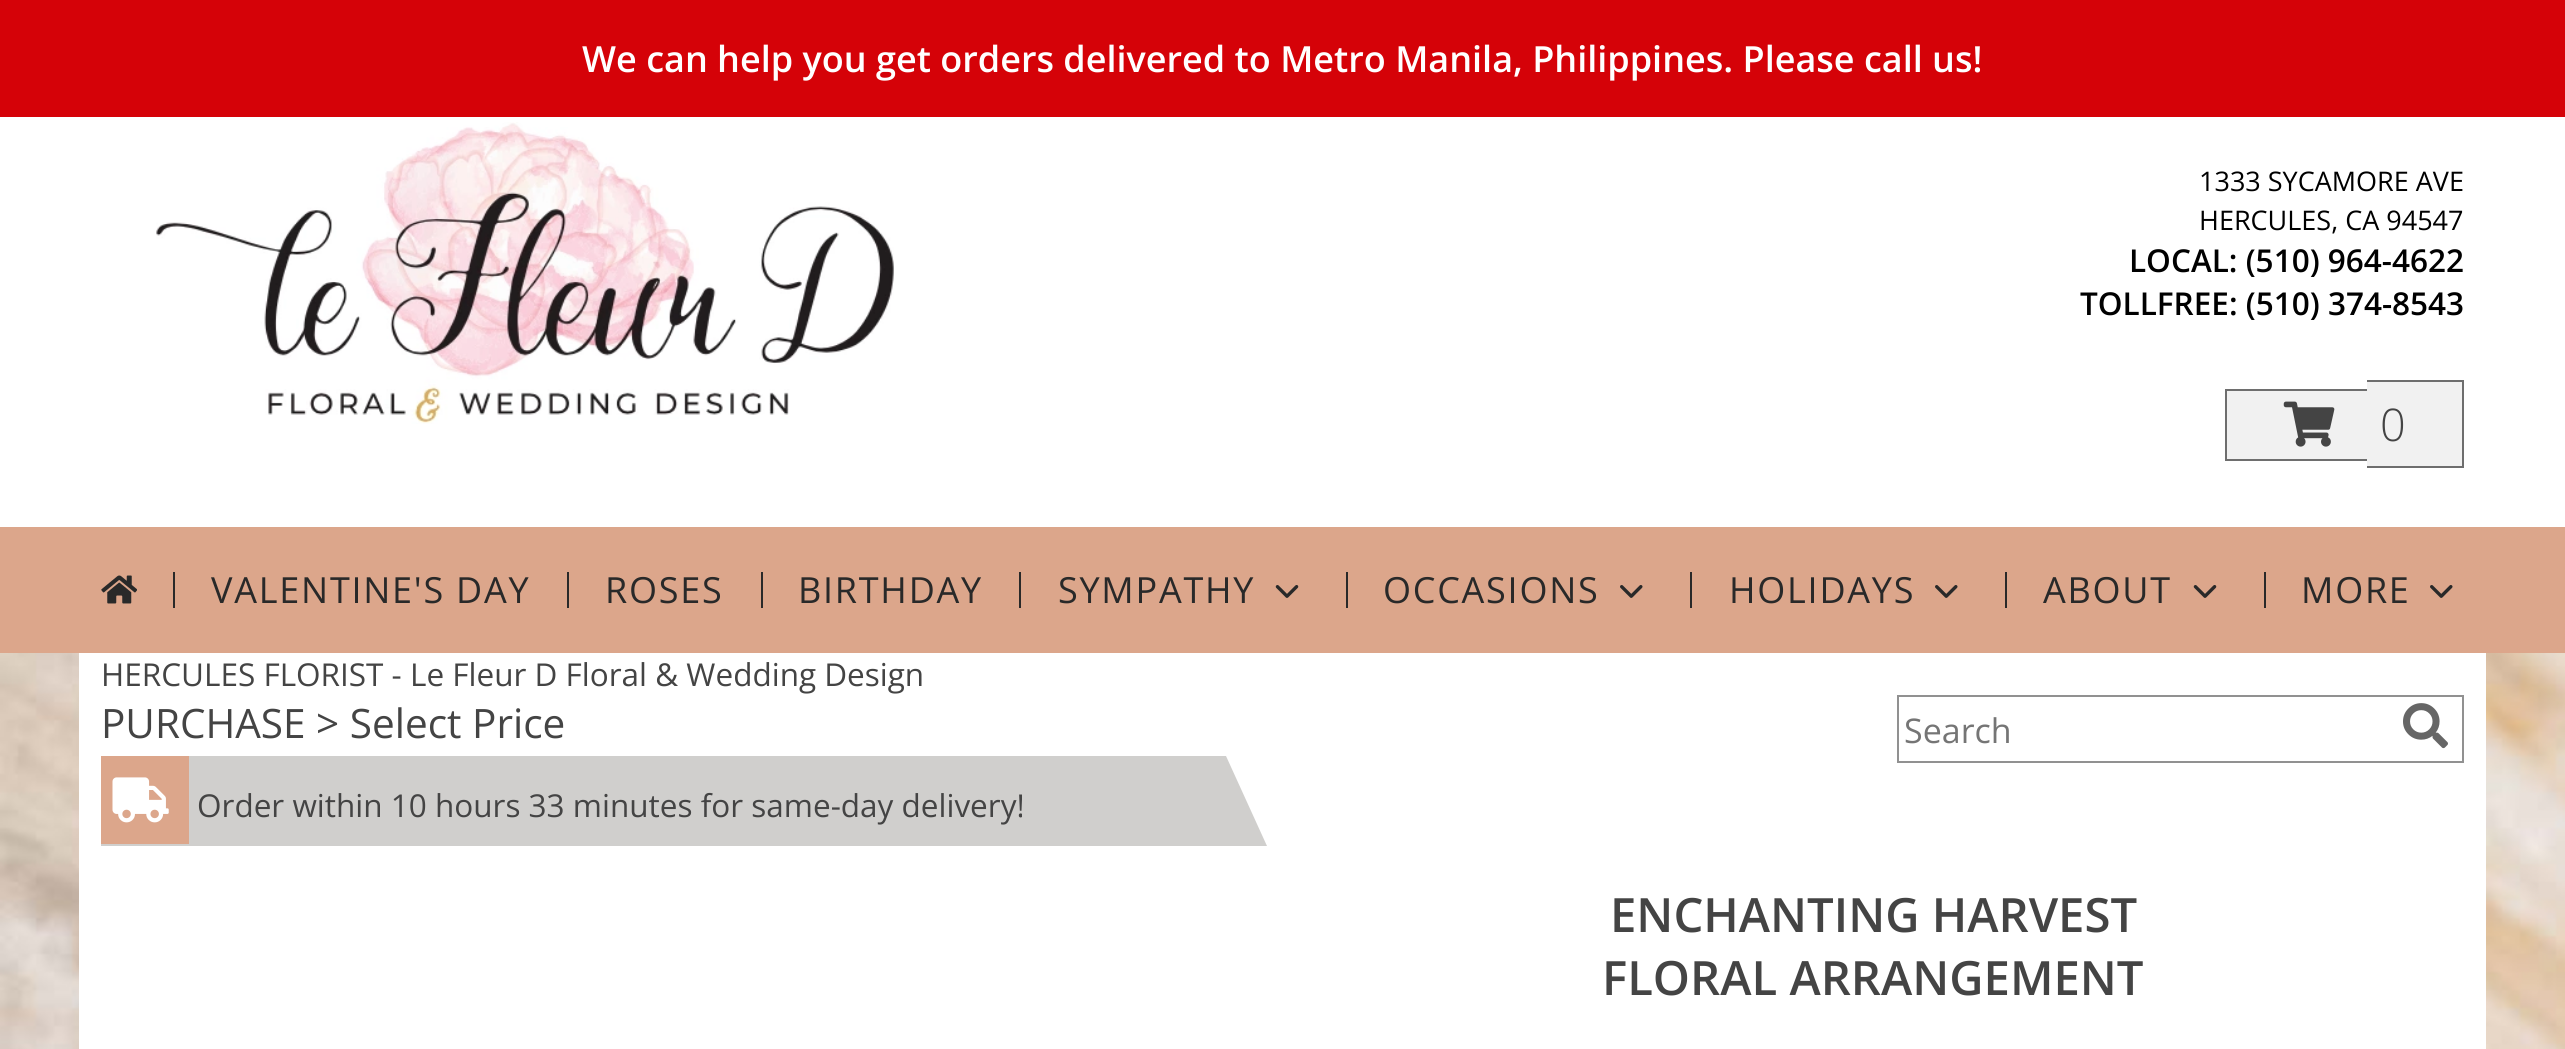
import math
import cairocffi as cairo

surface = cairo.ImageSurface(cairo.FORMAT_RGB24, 2565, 1049)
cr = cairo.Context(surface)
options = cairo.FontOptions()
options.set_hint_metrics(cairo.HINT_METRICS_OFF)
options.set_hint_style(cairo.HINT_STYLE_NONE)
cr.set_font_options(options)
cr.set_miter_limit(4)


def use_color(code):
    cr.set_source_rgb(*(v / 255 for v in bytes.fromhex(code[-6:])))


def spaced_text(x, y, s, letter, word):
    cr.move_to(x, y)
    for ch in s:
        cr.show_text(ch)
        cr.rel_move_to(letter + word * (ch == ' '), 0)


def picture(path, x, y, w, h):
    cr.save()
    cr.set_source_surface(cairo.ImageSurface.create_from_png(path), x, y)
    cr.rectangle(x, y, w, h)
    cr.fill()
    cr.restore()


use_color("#ffffff")
cr.paint()
picture("img1.png", 0, 653, 2565, 396)
use_color("#ffffff")
cr.rectangle(79, 653, 2407, 396)
cr.fill()
use_color("#d50208")
cr.rectangle(0, 0, 2565, 117)
cr.fill()
cr.select_font_face("Open Sans SemiBold")
cr.set_font_size(36)
use_color("#ffffff")
cr.move_to(582, 72)
cr.show_text("We can help you get orders delivered to Metro Manila, Philippines. Please call us!")
picture("img2.png", 156, 122, 738, 302)
cr.select_font_face("Open Sans")
cr.set_font_size(27)
use_color("#000000")
cr.move_to(2199, 191)
cr.show_text("1333 SYCAMORE AVE")
cr.move_to(2199, 230)
cr.show_text("HERCULES, CA 94547")
cr.select_font_face("Open Sans SemiBold")
cr.set_font_size(31.5)
cr.move_to(2129, 272)
cr.show_text("LOCAL: (510) 964-4622")
cr.move_to(2080, 315)
cr.show_text("TOLLFREE: (510) 374-8543")
use_color("#f1f1f1")
cr.rectangle(2227, 391, 140, 68)
cr.fill()
use_color("#6e6e6e")
cr.rectangle(2225, 389, 142, 2)
cr.fill()
cr.rectangle(2225, 459, 142, 2)
cr.fill()
cr.rectangle(2225, 389, 2, 72)
cr.fill()
use_color("#f1f1f1")
cr.rectangle(2367, 382, 95, 84)
cr.fill()
use_color("#6e6e6e")
cr.rectangle(2367, 380, 97, 2)
cr.fill()
cr.rectangle(2367, 466, 14, 2)
cr.fill()
cr.rectangle(2462, 380, 2, 88)
cr.fill()
cr.rectangle(2381, 466, 83, 2)
cr.fill()
picture("img3.png", 2283, 401, 52, 46)
cr.select_font_face("Open Sans Light")
cr.set_font_size(45)
use_color("#444444")
cr.move_to(2380, 441)
cr.show_text("0")
use_color("#dca68b")
cr.rectangle(0, 527, 2565, 126)
cr.fill()
picture("img4.png", 101, 575, 36, 29)
use_color("#292929")
cr.rectangle(173, 572, 2, 36)
cr.fill()
cr.select_font_face("Open Sans")
cr.set_font_size(36)
spaced_text(211, 603, "VALENTINE'S DAY", 1.75, 0)
cr.rectangle(567, 572, 2, 36)
cr.fill()
spaced_text(605, 603, "ROSES", 1.75, 0)
cr.rectangle(761, 572, 2, 36)
cr.fill()
spaced_text(798, 603, "BIRTHDAY", 1.75, 0)
cr.rectangle(1019, 572, 2, 36)
cr.fill()
spaced_text(1058, 603, "SYMPATHY", 1.75, 0)
picture("img5.png", 1275, 585, 24, 13)
cr.rectangle(1346, 572, 2, 36)
cr.fill()
spaced_text(1383, 603, "OCCASIONS", 1.75, 0)
picture("img6.png", 1620, 585, 23, 13)
cr.rectangle(1690, 572, 2, 36)
cr.fill()
spaced_text(1729, 603, "HOLIDAYS", 1.75, 0)
picture("img6.png", 1935, 585, 23, 13)
cr.rectangle(2005, 572, 2, 36)
cr.fill()
spaced_text(2043, 603, "ABOUT", 1.75, 0)
picture("img5.png", 2193, 585, 24, 13)
cr.rectangle(2264, 572, 2, 36)
cr.fill()
spaced_text(2301, 603, "MORE", 1.75, 0)
picture("img6.png", 2430, 585, 23, 13)
cr.set_font_size(31.5)
use_color("#444444")
cr.move_to(101, 686)
cr.show_text("HERCULES FLORIST - Le Fleur D Floral & Wedding Design")
cr.set_font_size(40.5)
cr.move_to(101, 738)
cr.show_text("PURCHASE > Select Price")
cr.rectangle(1898, 696, 565, 66)
use_color("#919191")
cr.stroke()
cr.set_font_size(34)
use_color("#757575")
cr.move_to(1904, 743)
cr.show_text("Search")
picture("img7.png", 2403, 703, 45, 46)
use_color("#d0cfcd")
cr.new_path()
cr.move_to(1267, 846)
cr.line_to(101, 846)
cr.line_to(101, 756)
cr.line_to(1226, 756)
cr.close_path()
cr.fill()
use_color("#dca68b")
cr.rectangle(101, 756, 88, 88)
cr.fill()
picture("img8.png", 112, 777, 57, 46)
cr.set_font_size(31.5)
use_color("#444444")
cr.move_to(197, 817)
cr.show_text("Order within 10 hours 33 minutes for same-day delivery!")
cr.select_font_face("Open Sans SemiBold")
cr.set_font_size(47.25)
cr.move_to(1610, 932)
cr.show_text("ENCHANTING HARVEST")
cr.move_to(1602, 995)
cr.show_text("FLORAL ARRANGEMENT")
surface.write_to_png("result.png")
